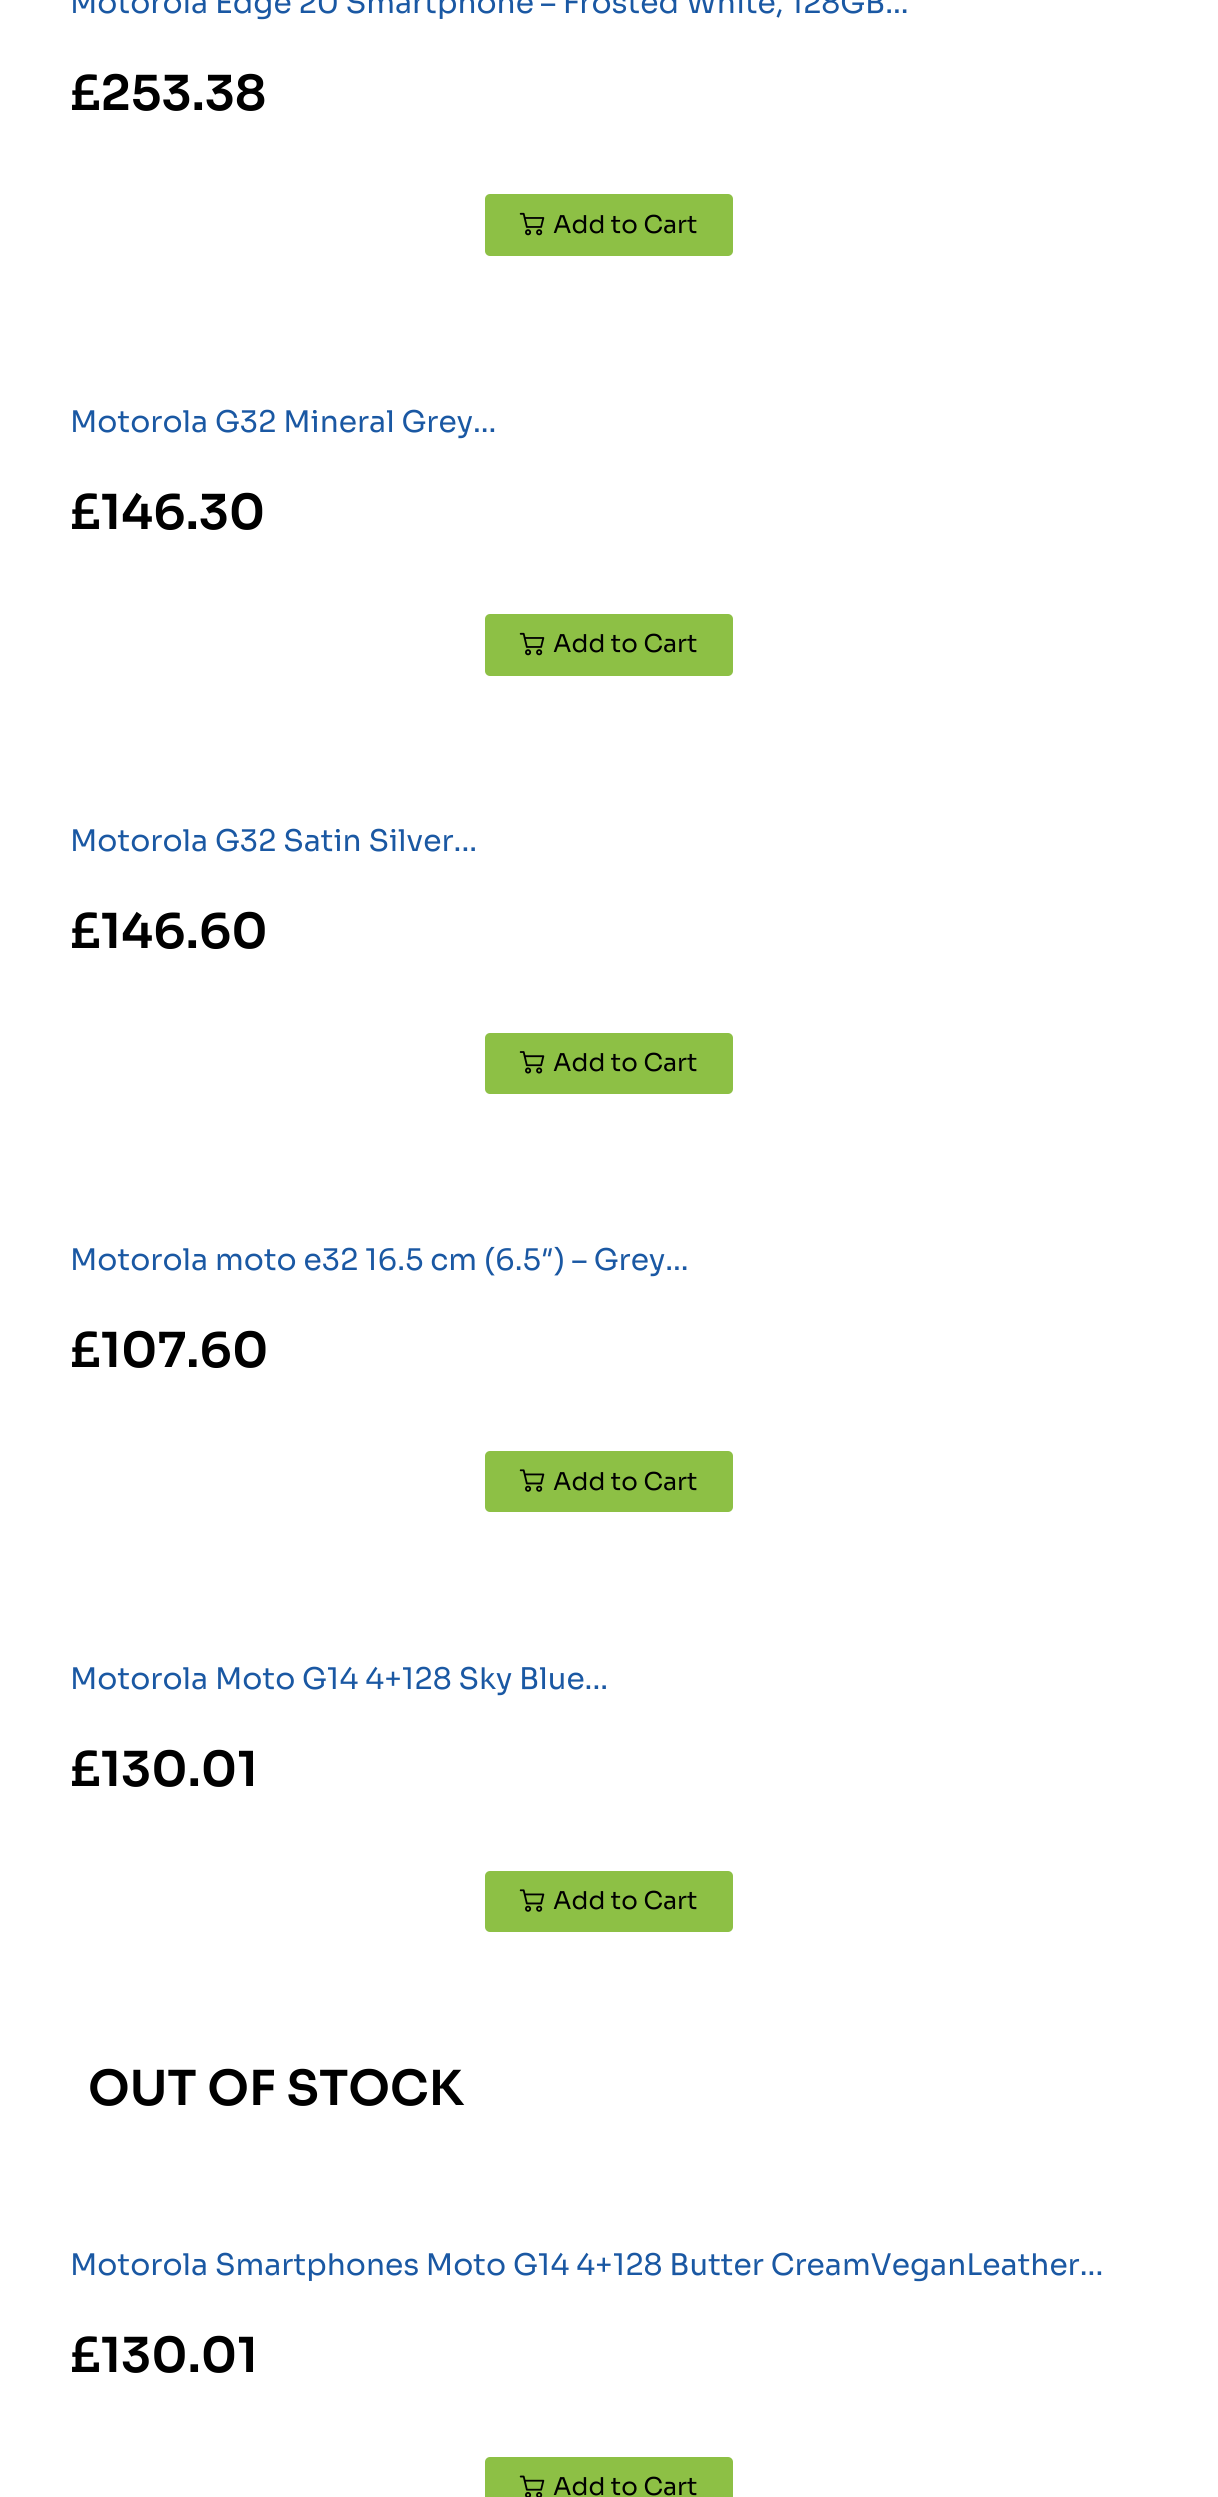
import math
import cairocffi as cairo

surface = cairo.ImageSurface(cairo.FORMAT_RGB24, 1218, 2497)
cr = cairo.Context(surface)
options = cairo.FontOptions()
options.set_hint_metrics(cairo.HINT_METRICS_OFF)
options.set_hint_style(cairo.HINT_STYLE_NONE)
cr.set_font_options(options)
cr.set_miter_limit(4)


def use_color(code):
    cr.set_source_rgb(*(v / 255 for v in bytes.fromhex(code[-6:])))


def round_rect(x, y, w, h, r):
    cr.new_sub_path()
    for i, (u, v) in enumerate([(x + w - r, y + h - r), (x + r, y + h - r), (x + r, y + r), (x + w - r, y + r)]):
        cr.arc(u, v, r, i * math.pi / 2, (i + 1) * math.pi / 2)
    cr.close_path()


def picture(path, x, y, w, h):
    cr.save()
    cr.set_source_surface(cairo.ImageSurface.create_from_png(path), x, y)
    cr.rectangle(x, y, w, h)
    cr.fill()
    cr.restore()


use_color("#ffffff")
cr.paint()
cr.select_font_face("Sora")
cr.set_font_size(29.75)
use_color("#1a58a3")
cr.move_to(70, 13)
cr.show_text("Motorola Edge 20 Smartphone – Frosted White, 128GB...")
cr.select_font_face("Sora SemiBold")
cr.set_font_size(48.25)
use_color("#000000")
cr.move_to(70, 110)
cr.show_text("£253.38")
use_color("#8dc045")
round_rect(485, 194, 248, 62, 5)
cr.fill()
picture("img1.png", 519, 212, 26, 24)
cr.select_font_face("Sora")
cr.set_font_size(24.5)
use_color("#000000")
cr.move_to(553, 233)
cr.show_text("Add to Cart")
cr.set_font_size(29.75)
use_color("#1a58a3")
cr.move_to(70, 432)
cr.show_text("Motorola G32 Mineral Grey...")
cr.select_font_face("Sora SemiBold")
cr.set_font_size(48.25)
use_color("#000000")
cr.move_to(70, 529)
cr.show_text("£146.30")
use_color("#8dc045")
round_rect(485, 614, 248, 62, 5)
cr.fill()
picture("img1.png", 519, 632, 26, 24)
cr.select_font_face("Sora")
cr.set_font_size(24.5)
use_color("#000000")
cr.move_to(553, 652)
cr.show_text("Add to Cart")
cr.set_font_size(29.75)
use_color("#1a58a3")
cr.move_to(70, 851)
cr.show_text("Motorola G32 Satin Silver...")
cr.select_font_face("Sora SemiBold")
cr.set_font_size(48.25)
use_color("#000000")
cr.move_to(70, 948)
cr.show_text("£146.60")
use_color("#8dc045")
round_rect(485, 1033, 248, 61, 5)
cr.fill()
picture("img2.png", 519, 1051, 26, 23)
cr.select_font_face("Sora")
cr.set_font_size(24.5)
use_color("#000000")
cr.move_to(553, 1071)
cr.show_text("Add to Cart")
cr.set_font_size(29.75)
use_color("#1a58a3")
cr.move_to(70, 1270)
cr.show_text("Motorola moto e32 16.5 cm (6.5″) – Grey...")
cr.select_font_face("Sora SemiBold")
cr.set_font_size(48.25)
use_color("#000000")
cr.move_to(70, 1367)
cr.show_text("£107.60")
use_color("#8dc045")
round_rect(485, 1451, 248, 61, 5)
cr.fill()
picture("img3.png", 519, 1469, 26, 23)
cr.select_font_face("Sora")
cr.set_font_size(24.5)
use_color("#000000")
cr.move_to(553, 1490)
cr.show_text("Add to Cart")
cr.set_font_size(29.75)
use_color("#1a58a3")
cr.move_to(70, 1689)
cr.show_text("Motorola Moto G14 4+128 Sky Blue...")
cr.select_font_face("Sora SemiBold")
cr.set_font_size(48.25)
use_color("#000000")
cr.move_to(70, 1786)
cr.show_text("£130.01")
use_color("#8dc045")
round_rect(485, 1871, 248, 61, 5)
cr.fill()
picture("img3.png", 519, 1889, 26, 23)
cr.select_font_face("Sora")
cr.set_font_size(24.5)
use_color("#000000")
cr.move_to(553, 1909)
cr.show_text("Add to Cart")
cr.select_font_face("Sora SemiBold")
cr.set_font_size(48.25)
cr.move_to(88, 2105)
cr.show_text("OUT OF STOCK")
cr.select_font_face("Sora")
cr.set_font_size(29.75)
use_color("#1a58a3")
cr.move_to(70, 2275)
cr.show_text("Motorola Smartphones Moto G14 4+128 Butter CreamVeganLeather...")
cr.select_font_face("Sora SemiBold")
cr.set_font_size(48.25)
use_color("#000000")
cr.move_to(70, 2372)
cr.show_text("£130.01")
use_color("#8dc045")
round_rect(485, 2457, 248, 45, 5)
cr.fill()
picture("img4.png", 519, 2475, 26, 22)
cr.select_font_face("Sora")
cr.set_font_size(24.5)
use_color("#000000")
cr.move_to(553, 2495)
cr.show_text("Add to Cart")
surface.write_to_png("result.png")
